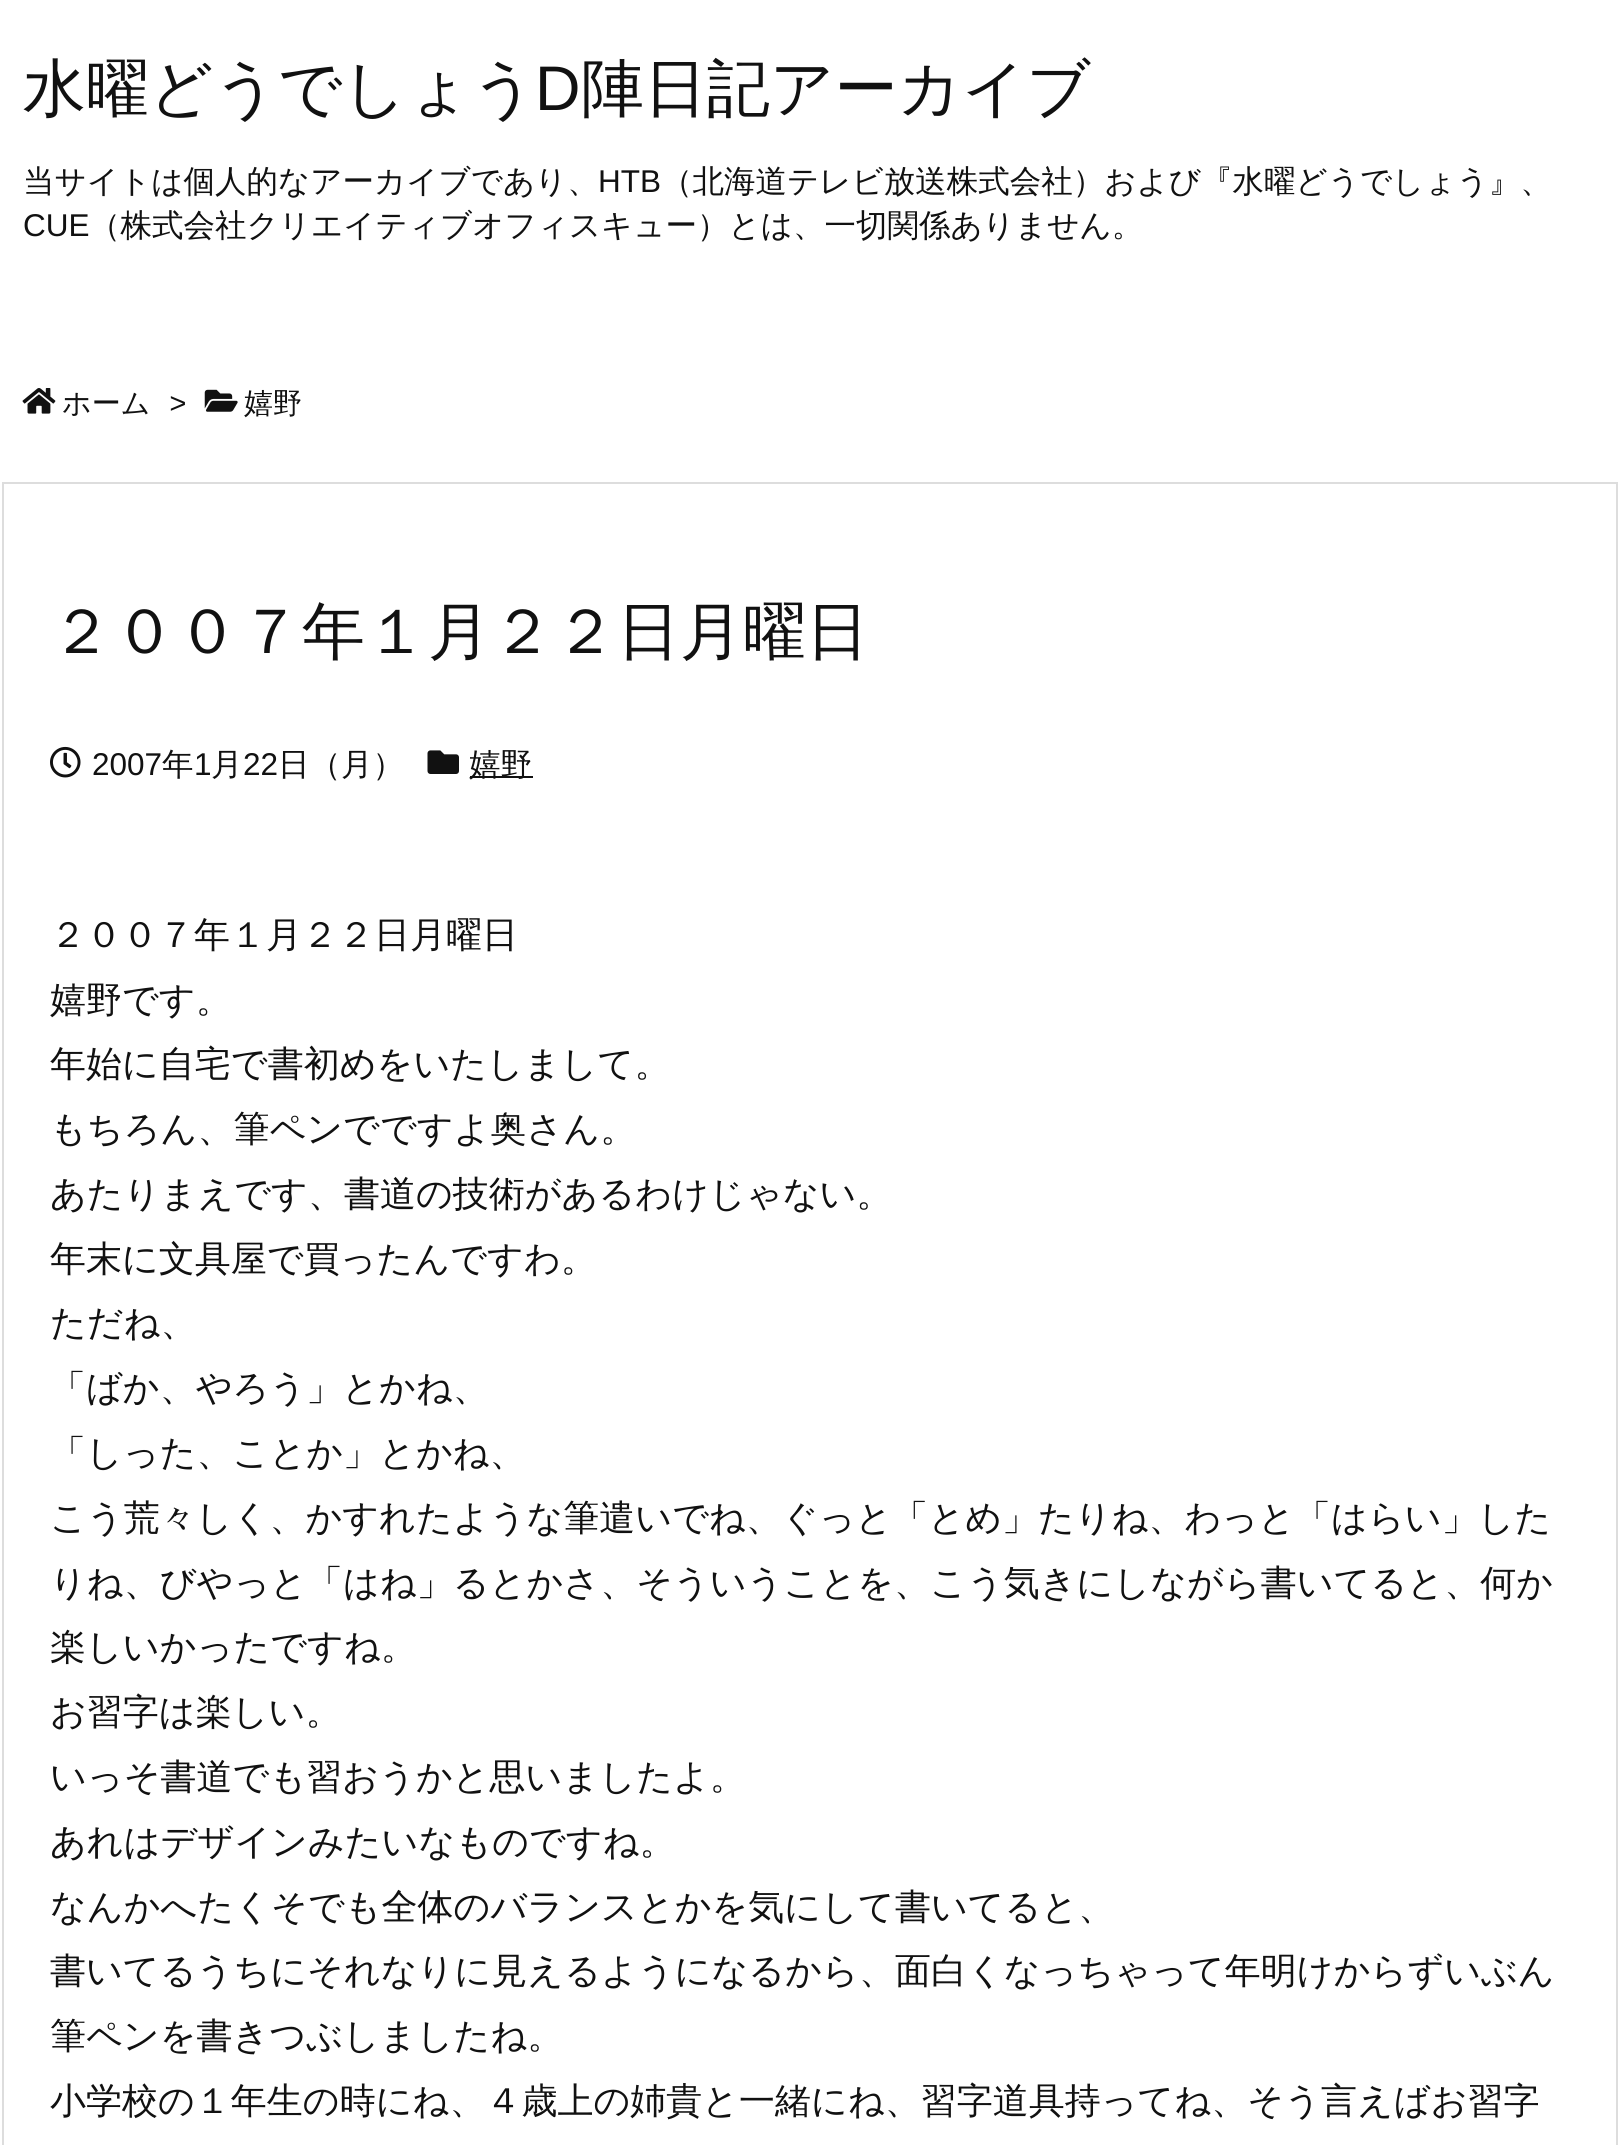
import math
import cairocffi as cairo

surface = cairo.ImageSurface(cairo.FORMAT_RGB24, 1619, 2145)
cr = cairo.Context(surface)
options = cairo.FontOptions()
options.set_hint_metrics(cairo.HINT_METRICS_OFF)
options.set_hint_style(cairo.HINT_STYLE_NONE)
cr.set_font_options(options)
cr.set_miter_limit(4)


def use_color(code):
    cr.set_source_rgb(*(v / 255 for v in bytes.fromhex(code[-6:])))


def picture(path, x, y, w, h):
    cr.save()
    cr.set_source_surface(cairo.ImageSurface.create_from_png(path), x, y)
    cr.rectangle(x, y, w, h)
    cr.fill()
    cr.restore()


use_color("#ffffff")
cr.paint()
cr.select_font_face("WenQuanYi Zen Hei Medium")
cr.set_font_size(63)
use_color("#111111")
cr.move_to(23, 110)
cr.show_text("水曜どうでしょう")
cr.select_font_face("Liberation Sans")
cr.move_to(535, 110)
cr.show_text("D")
cr.select_font_face("WenQuanYi Zen Hei Medium")
cr.move_to(581, 110)
cr.show_text("陣日記アーカイブ")
cr.set_font_size(31.5)
cr.move_to(23, 192)
cr.show_text("当サイトは個人的なアーカイブであり、")
cr.select_font_face("Liberation Sans")
cr.move_to(598, 192)
cr.show_text("HTB")
cr.select_font_face("WenQuanYi Zen Hei Medium")
cr.move_to(661, 192)
cr.show_text("（北海道テレビ放送株式会社）および『水曜どうでしょう』、")
cr.select_font_face("Liberation Sans")
cr.move_to(23, 236)
cr.show_text("CUE")
cr.select_font_face("WenQuanYi Zen Hei Medium")
cr.move_to(89, 236)
cr.show_text("（株式会社クリエイティブオフィスキュー）とは、一切関係ありません。")
picture("img1.png", 22, 388, 34, 26)
cr.set_font_size(29)
cr.move_to(62, 413)
cr.show_text("ホーム")
cr.select_font_face("Liberation Sans", cairo.FONT_SLANT_ITALIC)
cr.move_to(169, 413)
cr.show_text(">")
picture("img2.png", 204, 389, 34, 23)
cr.select_font_face("WenQuanYi Zen Hei Medium")
cr.move_to(244, 413)
cr.show_text("嬉野")
cr.rectangle(3, 483, 1614, 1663)
use_color("#dddddd")
cr.stroke()
cr.set_font_size(63)
use_color("#111111")
cr.move_to(50, 653)
cr.show_text("２００７年１月２２日月曜日")
picture("img3.png", 50, 746, 31, 32)
cr.select_font_face("Liberation Sans")
cr.set_font_size(31.5)
cr.move_to(92, 775)
cr.show_text("2007")
cr.select_font_face("WenQuanYi Zen Hei Medium")
cr.move_to(162, 775)
cr.show_text("年")
cr.select_font_face("Liberation Sans")
cr.move_to(194, 775)
cr.show_text("1")
cr.select_font_face("WenQuanYi Zen Hei Medium")
cr.move_to(211, 775)
cr.show_text("月")
cr.select_font_face("Liberation Sans")
cr.move_to(243, 775)
cr.show_text("22")
cr.select_font_face("WenQuanYi Zen Hei Medium")
cr.move_to(278, 775)
cr.show_text("日（月）")
picture("img4.png", 427, 750, 32, 24)
cr.rectangle(470, 776, 63, 2)
cr.fill()
cr.move_to(469, 775)
cr.show_text("嬉野")
cr.set_font_size(36)
cr.move_to(50, 947)
cr.show_text("２００７年１月２２日月曜日")
cr.move_to(50, 1012)
cr.show_text("嬉野です。")
cr.move_to(50, 1076)
cr.show_text("年始に自宅で書初めをいたしまして。")
cr.move_to(50, 1141)
cr.show_text("もちろん、筆ペンでですよ奥さん。")
cr.move_to(50, 1206)
cr.show_text("あたりまえです、書道の技術があるわけじゃない。")
cr.move_to(50, 1271)
cr.show_text("年末に文具屋で買ったんですわ。")
cr.move_to(50, 1335)
cr.show_text("ただね、")
cr.move_to(50, 1400)
cr.show_text("「ばか、やろう」とかね、")
cr.move_to(50, 1465)
cr.show_text("「しった、ことか」とかね、")
cr.move_to(50, 1530)
cr.show_text("こう荒々しく、かすれたような筆遣いでね、ぐっと「とめ」たりね、わっと「はらい」した")
cr.move_to(50, 1595)
cr.show_text("りね、びやっと「はね」るとかさ、そういうことを、こう気きにしながら書いてると、何か")
cr.move_to(50, 1659)
cr.show_text("楽しいかったですね。")
cr.move_to(50, 1724)
cr.show_text("お習字は楽しい。")
cr.move_to(50, 1789)
cr.show_text("いっそ書道でも習おうかと思いましたよ。")
cr.move_to(50, 1854)
cr.show_text("あれはデザインみたいなものですね。")
cr.move_to(50, 1919)
cr.show_text("なんかへたくそでも全体のバランスとかを気にして書いてると、")
cr.move_to(50, 1983)
cr.show_text("書いてるうちにそれなりに見えるようになるから、面白くなっちゃって年明けからずいぶん")
cr.move_to(50, 2048)
cr.show_text("筆ペンを書きつぶしましたね。")
cr.move_to(50, 2113)
cr.show_text("小学校の１年生の時にね、４歳上の姉貴と一緒にね、習字道具持ってね、そう言えばお習字")
surface.write_to_png("result.png")
